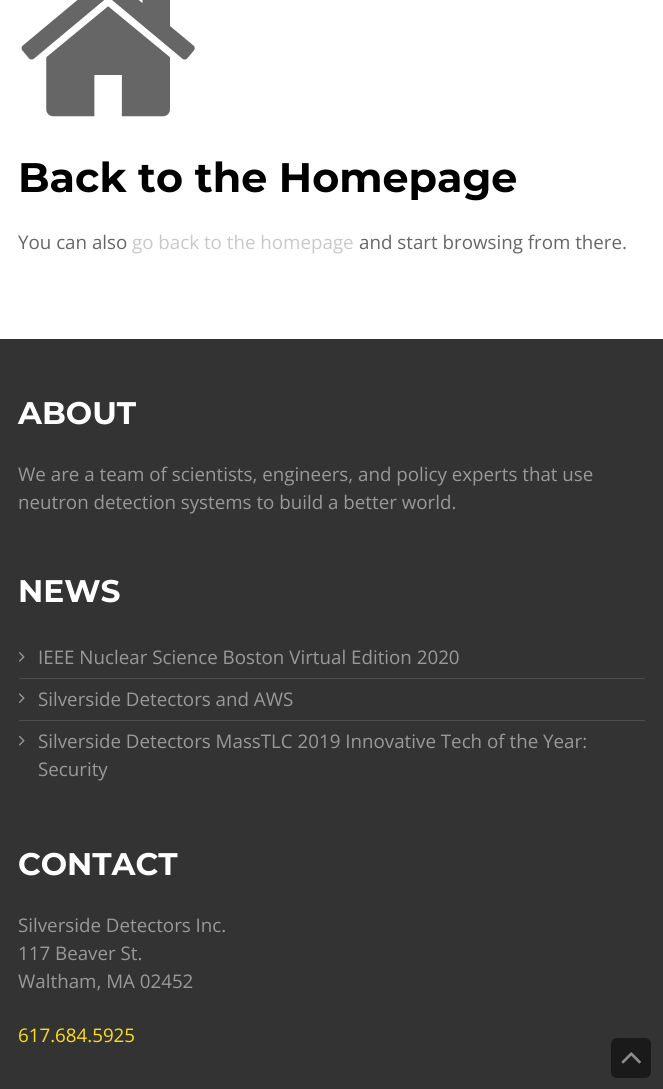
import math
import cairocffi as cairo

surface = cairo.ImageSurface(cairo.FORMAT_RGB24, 663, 1089)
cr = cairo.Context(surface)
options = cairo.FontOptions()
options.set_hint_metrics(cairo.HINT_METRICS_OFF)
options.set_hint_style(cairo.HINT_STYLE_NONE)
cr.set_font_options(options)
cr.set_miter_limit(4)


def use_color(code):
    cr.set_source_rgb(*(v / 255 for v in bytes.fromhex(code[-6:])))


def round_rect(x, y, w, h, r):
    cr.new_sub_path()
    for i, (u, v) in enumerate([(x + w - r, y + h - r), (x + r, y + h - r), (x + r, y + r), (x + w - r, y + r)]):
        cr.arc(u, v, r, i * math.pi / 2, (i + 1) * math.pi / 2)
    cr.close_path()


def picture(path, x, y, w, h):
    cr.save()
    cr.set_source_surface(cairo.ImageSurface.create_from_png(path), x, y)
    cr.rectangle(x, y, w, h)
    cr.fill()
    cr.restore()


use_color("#ffffff")
cr.paint()
picture("img1.png", 21, 0, 174, 117)
cr.select_font_face("Montserrat Thin")
cr.set_font_size(41.25)
use_color("#000000")
cr.move_to(18, 192)
cr.show_text("Back to the Homepage")
cr.select_font_face("Open Sans")
cr.set_font_size(18.75)
use_color("#666666")
cr.move_to(18, 249)
cr.show_text("You can also")
use_color("#c9c9c9")
cr.move_to(132, 249)
cr.show_text("go back to the homepage")
use_color("#666666")
cr.move_to(359, 249)
cr.show_text("and start browsing from there.")
use_color("#333333")
cr.rectangle(0, 339, 663, 750)
cr.fill()
cr.select_font_face("Montserrat Thin")
cr.set_font_size(31.25)
use_color("#ffffff")
cr.move_to(18, 424)
cr.show_text("ABOUT")
cr.select_font_face("Open Sans")
cr.set_font_size(18.75)
use_color("#999999")
cr.move_to(18, 481)
cr.show_text("We are a team of scientists, engineers, and policy experts that use")
cr.move_to(18, 509)
cr.show_text("neutron detection systems to build a better world.")
cr.select_font_face("Montserrat Thin")
cr.set_font_size(31.25)
use_color("#ffffff")
cr.move_to(18, 602)
cr.show_text("NEWS")
picture("img2.png", 19, 652, 6, 10)
cr.select_font_face("Open Sans")
cr.set_font_size(18.75)
use_color("#999999")
cr.move_to(38, 664)
cr.show_text("IEEE Nuclear Science Boston Virtual Edition 2020")
use_color("#4d4d4d")
cr.rectangle(19, 678, 626, 1)
cr.fill()
picture("img3.png", 19, 693, 6, 10)
use_color("#999999")
cr.move_to(38, 706)
cr.show_text("Silverside Detectors and AWS")
use_color("#4d4d4d")
cr.rectangle(19, 720, 626, 1)
cr.fill()
picture("img4.png", 19, 735, 6, 11)
use_color("#999999")
cr.move_to(38, 748)
cr.show_text("Silverside Detectors MassTLC 2019 Innovative Tech of the Year:")
cr.move_to(38, 776)
cr.show_text("Security")
cr.select_font_face("Montserrat Thin")
cr.set_font_size(31.25)
use_color("#ffffff")
cr.move_to(18, 875)
cr.show_text("CONTACT")
cr.select_font_face("Open Sans")
cr.set_font_size(18.75)
use_color("#999999")
cr.move_to(18, 932)
cr.show_text("Silverside Detectors Inc.")
cr.move_to(18, 960)
cr.show_text("117 Beaver St.")
cr.move_to(18, 988)
cr.show_text("Waltham, MA 02452")
use_color("#ffde16")
cr.move_to(18, 1042)
cr.show_text("617.684.5925")
use_color("#1a1a1a")
round_rect(611, 1038, 40, 40, 6)
cr.fill()
picture("img5.png", 621, 1052, 20, 12)
surface.write_to_png("result.png")
